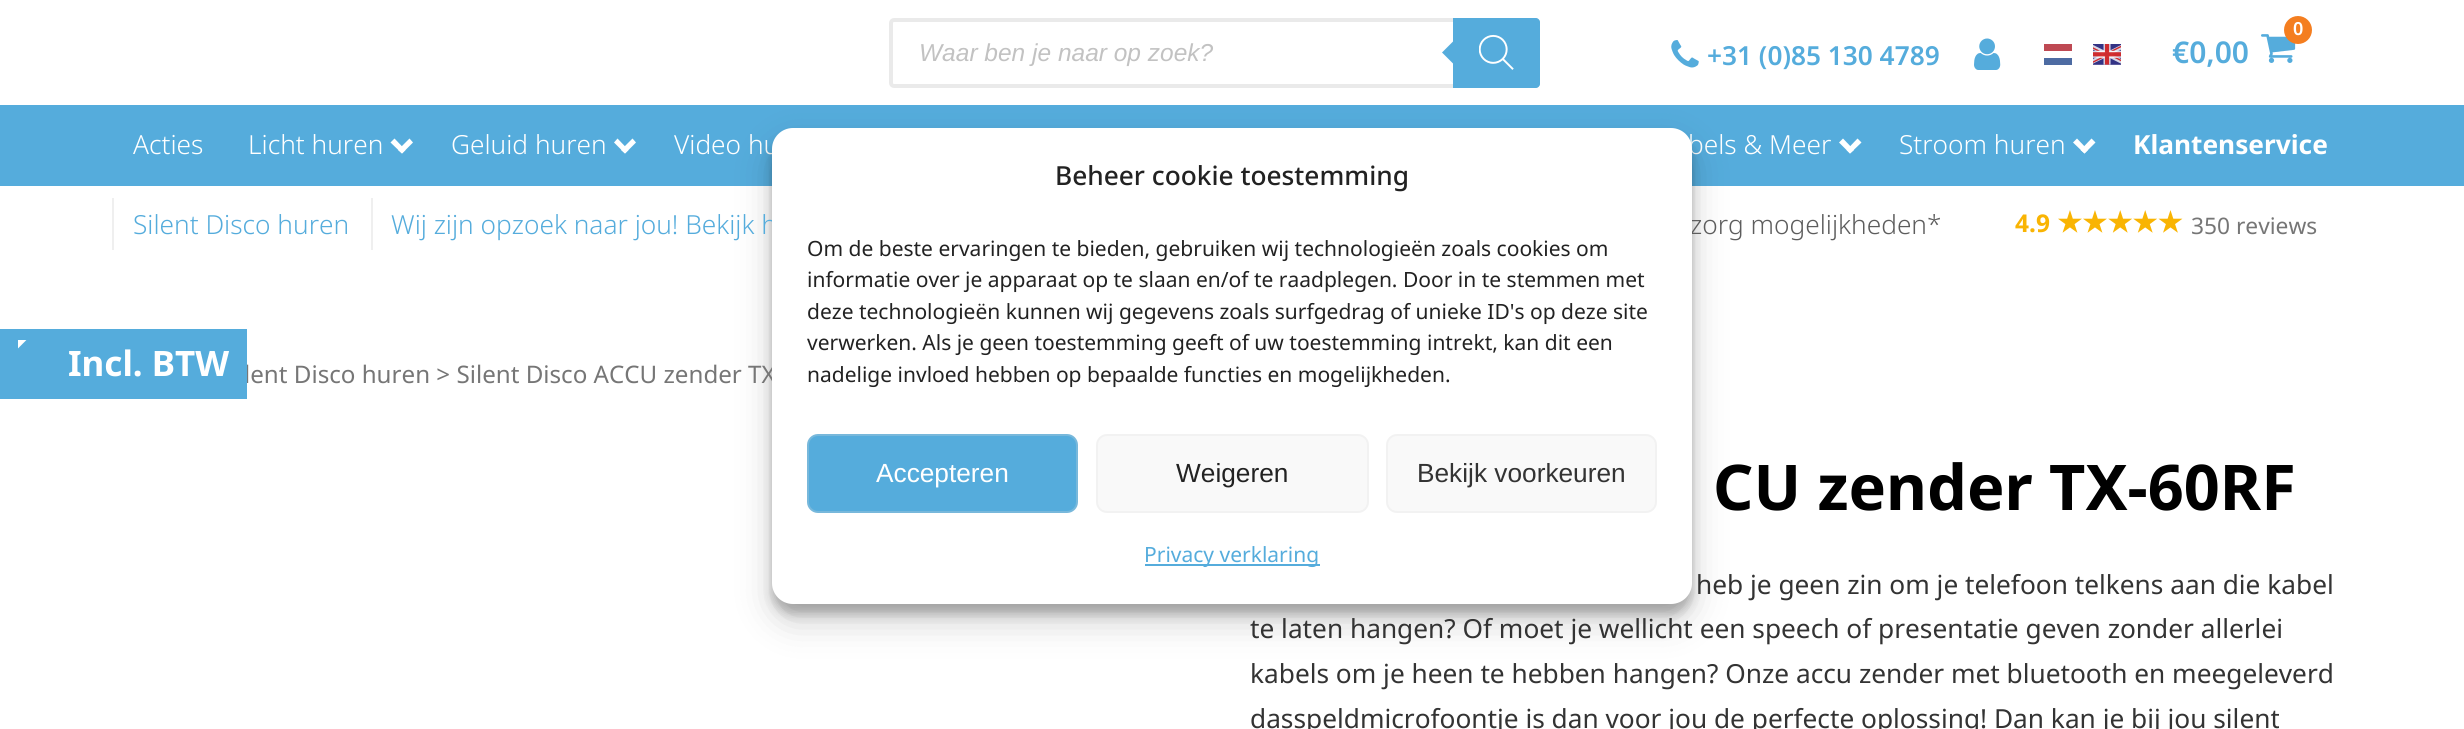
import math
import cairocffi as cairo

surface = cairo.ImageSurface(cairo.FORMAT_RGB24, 2464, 729)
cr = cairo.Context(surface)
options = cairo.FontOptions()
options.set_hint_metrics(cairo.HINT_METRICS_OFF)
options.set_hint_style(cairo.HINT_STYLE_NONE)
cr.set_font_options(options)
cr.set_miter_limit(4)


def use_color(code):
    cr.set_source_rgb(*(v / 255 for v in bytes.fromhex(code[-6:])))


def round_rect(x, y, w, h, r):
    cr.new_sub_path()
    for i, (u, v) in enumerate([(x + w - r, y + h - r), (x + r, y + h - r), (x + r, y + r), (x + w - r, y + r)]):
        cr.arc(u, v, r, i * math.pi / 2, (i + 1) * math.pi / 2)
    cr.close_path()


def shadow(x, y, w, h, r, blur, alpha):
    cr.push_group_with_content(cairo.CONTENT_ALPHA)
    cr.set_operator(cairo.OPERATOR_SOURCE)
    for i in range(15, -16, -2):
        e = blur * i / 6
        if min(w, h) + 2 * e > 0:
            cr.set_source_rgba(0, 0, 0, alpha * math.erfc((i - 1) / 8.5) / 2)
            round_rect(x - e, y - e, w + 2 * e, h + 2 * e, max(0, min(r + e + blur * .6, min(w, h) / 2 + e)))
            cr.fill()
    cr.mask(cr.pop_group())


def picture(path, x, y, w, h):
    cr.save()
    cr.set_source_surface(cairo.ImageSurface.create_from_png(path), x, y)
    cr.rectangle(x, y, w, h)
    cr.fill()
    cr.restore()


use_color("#ffffff")
cr.paint()
round_rect(891, 20, 647, 66, 3)
use_color("#eaeaea")
cr.set_line_width(4)
cr.stroke()
cr.select_font_face("Liberation Sans", cairo.FONT_SLANT_ITALIC)
cr.set_font_size(24.5)
use_color("#c2c2c2")
cr.move_to(919, 61)
cr.show_text("Waar ben je naar op zoek?")
use_color("#55acdc")
cr.new_path()
cr.move_to(1453, 18)
cr.line_to(1536, 18)
cr.curve_to(1538, 18, 1540, 20, 1540, 22)
cr.line_to(1540, 84)
cr.curve_to(1540, 86, 1538, 88, 1536, 88)
cr.line_to(1453, 88)
cr.close_path()
cr.fill()
cr.new_path()
cr.move_to(1456, 38.5)
cr.line_to(1456, 66.5)
cr.line_to(1442, 52.5)
cr.close_path()
cr.fill()
picture("img1.png", 1479, 34, 35, 36)
picture("img2.png", 1671, 40, 28, 28)
cr.select_font_face("Noto Sans SemiBold")
cr.set_font_size(26.25)
cr.move_to(1707, 65)
cr.show_text("+31 (0)85 130 4789")
picture("img3.png", 1974, 38, 27, 32)
use_color("#be4953")
cr.rectangle(2044, 44, 28, 7)
cr.fill()
picture("img4.png", 2093, 44, 28, 21)
use_color("#4d6ba2")
cr.rectangle(2044, 58, 28, 7)
cr.fill()
picture("img5.png", 2261, 34, 35, 29)
use_color("#f47e20")
cr.arc(2298, 30, 14, 0, 2 * math.pi)
cr.fill()
cr.set_font_size(18)
use_color("#ffffff")
cr.move_to(2293, 35)
cr.show_text("0")
cr.set_font_size(30)
use_color("#55acdc")
cr.move_to(2172, 63)
cr.show_text("€0,00")
cr.rectangle(0, 105, 2464, 81)
cr.fill()
cr.select_font_face("Noto Sans Light")
cr.set_font_size(26.25)
use_color("#ffffff")
cr.move_to(133, 154)
cr.show_text("Acties")
cr.move_to(248, 154)
cr.show_text("Licht huren")
cr.new_path()
cr.move_to(409.5, 138.5)
cr.line_to(413, 142.5)
cr.line_to(402, 153.5)
cr.line_to(398, 150)
cr.close_path()
cr.fill()
cr.new_path()
cr.move_to(394.5, 138.5)
cr.line_to(405.5, 150)
cr.line_to(402, 153.5)
cr.line_to(390.5, 142.5)
cr.close_path()
cr.fill()
cr.move_to(451, 154)
cr.show_text("Geluid huren")
cr.new_path()
cr.move_to(632.5, 138.5)
cr.line_to(636, 142.5)
cr.line_to(625, 153.5)
cr.line_to(621, 150)
cr.close_path()
cr.fill()
cr.new_path()
cr.move_to(617.5, 138.5)
cr.line_to(628.5, 150)
cr.line_to(625, 153.5)
cr.line_to(614, 142.5)
cr.close_path()
cr.fill()
cr.move_to(674, 154)
cr.show_text("Video hu")
cr.move_to(1688, 154)
cr.show_text("bels & Meer")
cr.new_path()
cr.move_to(1857.5, 138.5)
cr.line_to(1861.5, 142.5)
cr.line_to(1850, 153.5)
cr.line_to(1846.5, 150)
cr.close_path()
cr.fill()
cr.new_path()
cr.move_to(1843, 138.5)
cr.line_to(1854, 150)
cr.line_to(1850, 153.5)
cr.line_to(1839, 142.5)
cr.close_path()
cr.fill()
cr.move_to(1899, 154)
cr.show_text("Stroom huren")
cr.new_path()
cr.move_to(2091.5, 138.5)
cr.line_to(2095.5, 142.5)
cr.line_to(2084.5, 153.5)
cr.line_to(2080.5, 150)
cr.close_path()
cr.fill()
cr.new_path()
cr.move_to(2077, 138.5)
cr.line_to(2088, 150)
cr.line_to(2084.5, 153.5)
cr.line_to(2073, 142.5)
cr.close_path()
cr.fill()
cr.select_font_face("Noto Sans", cairo.FONT_SLANT_NORMAL, cairo.FONT_WEIGHT_BOLD)
cr.move_to(2133, 154)
cr.show_text("Klantenservice")
use_color("#000000")
shadow(772, 138, 920, 476, 21, 5, 0.23)
shadow(772, 145, 920, 476, 21, 17.5, 0.19)
cr.select_font_face("Noto Sans Light")
use_color("#55acdc")
cr.move_to(391, 234)
cr.show_text("Wij zijn opzoek naar jou! Bekijk h")
use_color("#5d5d5d")
cr.move_to(1690, 234)
cr.show_text("zorg mogelijkheden*")
cr.select_font_face("Noto Sans")
cr.set_font_size(24.15)
use_color("#767676")
cr.move_to(244, 383)
cr.show_text("lent Disco huren > Silent Disco ACCU zender TX")
use_color("#ffffff")
round_rect(772, 128, 920, 476, 21)
cr.fill()
cr.select_font_face("Noto Sans Medium")
cr.set_font_size(26.25)
use_color("#222222")
cr.move_to(1055, 185)
cr.show_text("Beheer cookie toestemming")
cr.select_font_face("Noto Sans")
cr.set_font_size(21)
cr.move_to(807, 256)
cr.show_text("Om de beste ervaringen te bieden, gebruiken wij technologieën zoals cookies om")
cr.move_to(807, 287)
cr.show_text("informatie over je apparaat op te slaan en/of te raadplegen. Door in te stemmen met")
cr.move_to(807, 319)
cr.show_text("deze technologieën kunnen wij gegevens zoals surfgedrag of unieke ID's op deze site")
cr.move_to(807, 350)
cr.show_text("verwerken. Als je geen toestemming geeft of uw toestemming intrekt, kan dit een")
cr.move_to(807, 382)
cr.show_text("nadelige invloed hebben op bepaalde functies en mogelijkheden.")
use_color("#55acdc")
round_rect(808, 435, 269, 77, 10)
cr.fill_preserve()
use_color("#78b8db")
cr.set_line_width(2)
cr.stroke()
cr.select_font_face("Liberation Sans")
cr.set_font_size(26.25)
use_color("#ffffff")
cr.move_to(876, 482)
cr.show_text("Accepteren")
use_color("#f9f9f9")
round_rect(1097, 435, 271, 77, 10)
cr.fill_preserve()
use_color("#f2f2f2")
cr.stroke()
use_color("#222222")
cr.move_to(1176, 482)
cr.show_text("Weigeren")
use_color("#f9f9f9")
round_rect(1387, 435, 269, 77, 10)
cr.fill_preserve()
use_color("#f2f2f2")
cr.stroke()
use_color("#333333")
cr.move_to(1417, 482)
cr.show_text("Bekijk voorkeuren")
use_color("#55acdc")
cr.rectangle(1145, 564, 175, 2)
cr.fill()
cr.select_font_face("Noto Sans")
cr.set_font_size(21)
cr.move_to(1144, 562)
cr.show_text("Privacy verklaring")
use_color("#efefef")
cr.rectangle(112, 198, 2, 52)
cr.fill()
cr.select_font_face("Noto Sans Light")
cr.set_font_size(26.25)
use_color("#55acdc")
cr.move_to(133, 234)
cr.show_text("Silent Disco huren")
use_color("#efefef")
cr.rectangle(371, 198, 2, 52)
cr.fill()
cr.select_font_face("Noto Sans", cairo.FONT_SLANT_NORMAL, cairo.FONT_WEIGHT_BOLD)
cr.set_font_size(24.5)
use_color("#f9b403")
cr.move_to(2015, 232)
cr.show_text("4.9")
cr.select_font_face("DejaVu Sans", cairo.FONT_SLANT_NORMAL, cairo.FONT_WEIGHT_BOLD)
cr.set_font_size(28)
cr.move_to(2057, 232)
cr.show_text("★★★★★")
cr.select_font_face("Noto Sans")
cr.set_font_size(22.75)
use_color("#767676")
cr.move_to(2191, 234)
cr.show_text("350 reviews")
use_color("#55acdc")
cr.rectangle(0, 329, 247, 70)
cr.fill()
picture("img6.png", 18, 340, 9, 9)
cr.select_font_face("Noto Sans", cairo.FONT_SLANT_NORMAL, cairo.FONT_WEIGHT_BOLD)
cr.set_font_size(35)
use_color("#ffffff")
cr.move_to(68, 376)
cr.show_text("Incl. BTW")
cr.set_font_size(63)
use_color("#000000")
cr.move_to(1713, 510)
cr.show_text("CU zender TX-60RF")
cr.select_font_face("Noto Sans")
cr.set_font_size(26.25)
use_color("#333333")
cr.move_to(1696, 594)
cr.show_text("heb je geen zin om je telefoon telkens aan die kabel")
cr.move_to(1250, 638)
cr.show_text("te laten hangen? Of moet je wellicht een speech of presentatie geven zonder allerlei")
cr.move_to(1250, 683)
cr.show_text("kabels om je heen te hebben hangen? Onze accu zender met bluetooth en meegeleverd")
cr.move_to(1250, 728)
cr.show_text("dasspeldmicrofoontje is dan voor jou de perfecte oplossing! Dan kan je bij jou silent")
surface.write_to_png("result.png")
